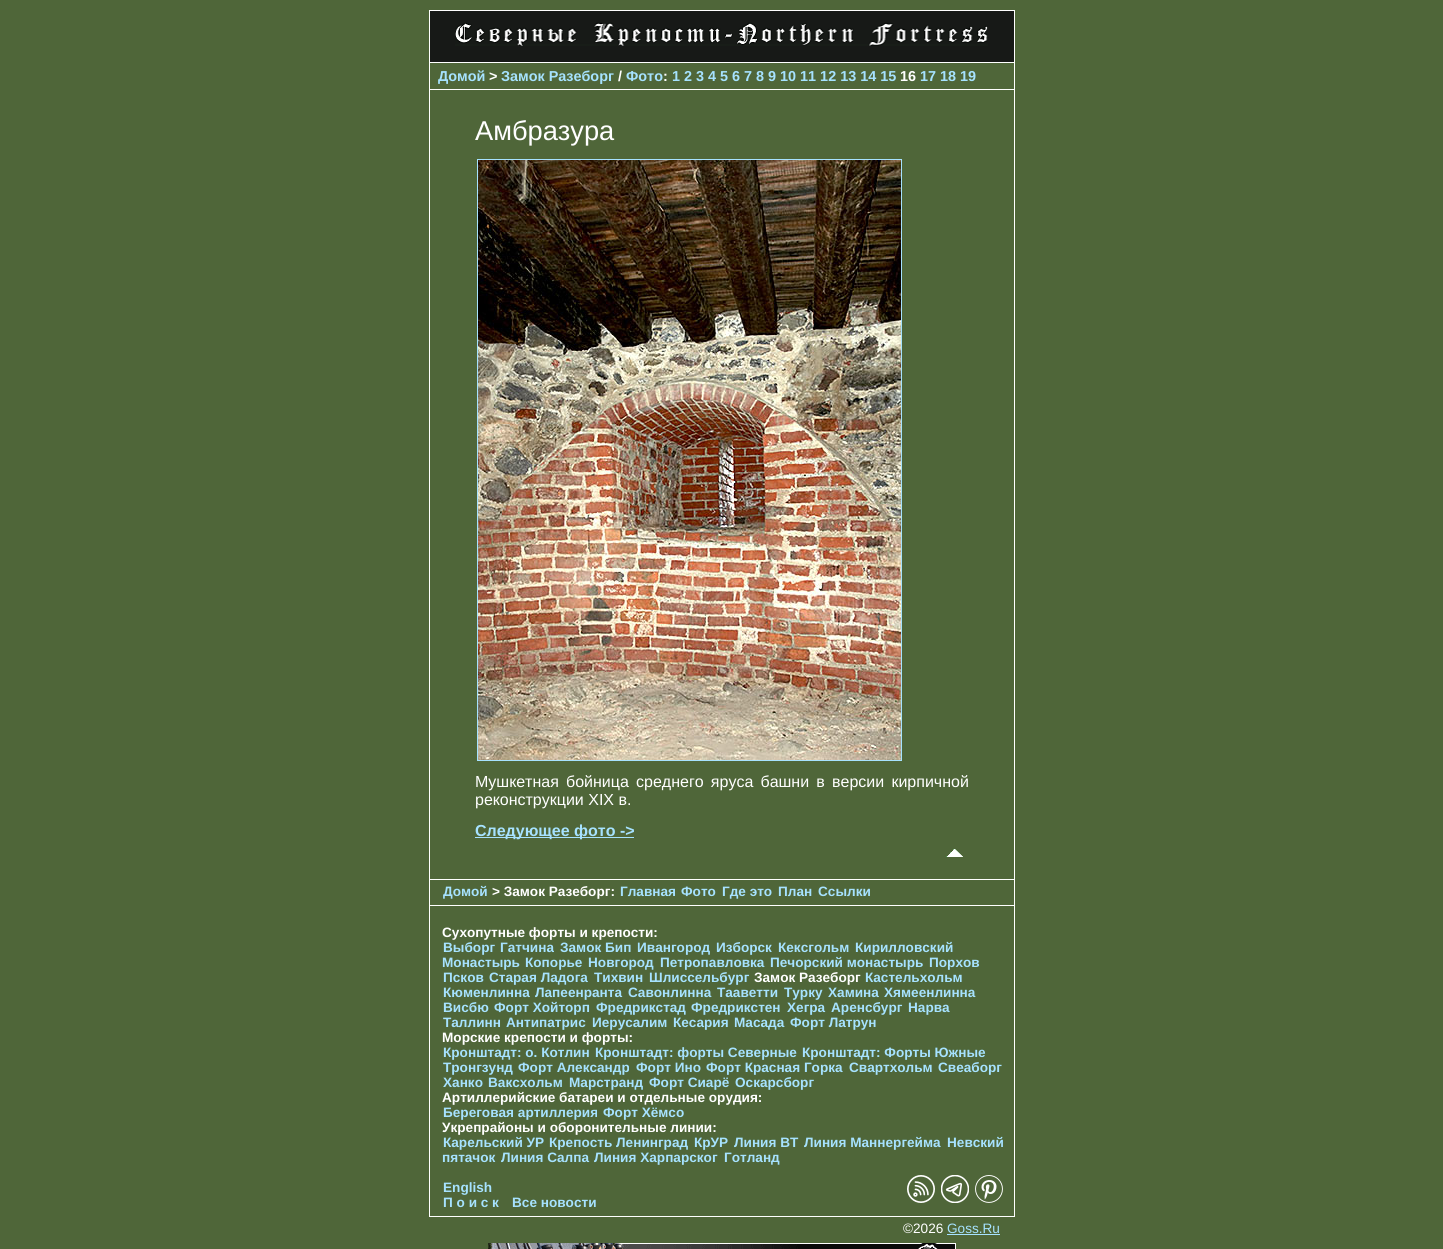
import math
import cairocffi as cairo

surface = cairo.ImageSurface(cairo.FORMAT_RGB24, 1443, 1249)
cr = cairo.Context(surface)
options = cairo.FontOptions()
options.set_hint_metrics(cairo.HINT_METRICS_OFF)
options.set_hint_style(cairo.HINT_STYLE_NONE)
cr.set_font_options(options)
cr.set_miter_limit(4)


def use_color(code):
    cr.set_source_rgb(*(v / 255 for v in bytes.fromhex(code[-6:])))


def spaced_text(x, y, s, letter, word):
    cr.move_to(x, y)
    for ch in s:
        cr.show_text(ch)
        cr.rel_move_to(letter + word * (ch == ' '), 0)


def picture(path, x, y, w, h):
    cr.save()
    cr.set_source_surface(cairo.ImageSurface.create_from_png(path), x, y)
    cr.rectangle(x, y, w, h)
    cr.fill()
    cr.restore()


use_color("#4f6639")
cr.paint()
use_color("#171917")
cr.rectangle(430, 11, 584, 51)
cr.fill()
use_color("#ffffff")
cr.rectangle(429, 10, 586, 1)
cr.fill()
cr.rectangle(1014, 10, 1, 52)
cr.fill()
cr.rectangle(429, 10, 1, 52)
cr.fill()
picture("img1.png", 455, 22, 533, 24)
cr.rectangle(429, 62, 586, 1)
cr.fill()
cr.rectangle(1014, 62, 1, 27)
cr.fill()
cr.rectangle(429, 62, 1, 27)
cr.fill()
cr.select_font_face("Liberation Sans", cairo.FONT_SLANT_NORMAL, cairo.FONT_WEIGHT_BOLD)
cr.set_font_size(14.4)
use_color("#a6e2ff")
cr.move_to(438, 81)
cr.show_text("Домой")
use_color("#ffffff")
cr.move_to(489, 81)
cr.show_text(">")
use_color("#a6e2ff")
cr.move_to(501, 81)
cr.show_text("Замок Разеборг")
use_color("#ffffff")
cr.move_to(618, 81)
cr.show_text("/")
use_color("#a6e2ff")
cr.move_to(626, 81)
cr.show_text("Фото")
use_color("#ffffff")
cr.move_to(663, 81)
cr.show_text(":")
use_color("#a6e2ff")
cr.move_to(672, 81)
cr.show_text("1 2 3 4 5 6 7 8 9 10 11 12 13 14 15")
use_color("#ffffff")
cr.move_to(900, 81)
cr.show_text("16")
use_color("#a6e2ff")
cr.move_to(920, 81)
cr.show_text("17 18 19")
cr.rectangle(429.5, 89.5, 585, 790)
use_color("#ffffff")
cr.set_line_width(1)
cr.stroke()
cr.select_font_face("Liberation Sans")
cr.set_font_size(27.25)
cr.move_to(475, 140)
cr.show_text("Амбразура")
cr.rectangle(477.5, 159.5, 424, 601)
use_color("#a6e2ff")
cr.stroke()
picture("img2.png", 478, 160, 423, 600)
cr.set_font_size(16)
use_color("#ffffff")
spaced_text(475, 787, "Мушкетная бойница среднего яруса башни в версии кирпичной", 0, 2.75)
cr.move_to(475, 805)
cr.show_text("реконструкции XIX в.")
use_color("#a6e2ff")
cr.rectangle(475, 837, 159, 1)
cr.fill()
cr.select_font_face("Liberation Sans", cairo.FONT_SLANT_NORMAL, cairo.FONT_WEIGHT_BOLD)
cr.move_to(475, 836)
cr.show_text("Следующее фото ->")
picture("img3.png", 946, 849, 17, 8)
use_color("#ffffff")
cr.rectangle(1014, 880, 1, 337)
cr.fill()
cr.rectangle(429, 905, 586, 1)
cr.fill()
cr.rectangle(429, 880, 1, 26)
cr.fill()
cr.set_font_size(13.6)
use_color("#a6e2ff")
cr.move_to(443, 896)
cr.show_text("Домой")
use_color("#ffffff")
cr.move_to(492, 896)
cr.show_text("> Замок Разеборг:")
use_color("#a6e2ff")
cr.move_to(620, 896)
cr.show_text("Главная")
cr.move_to(681, 896)
cr.show_text("Фото")
cr.move_to(722, 896)
cr.show_text("Где это")
cr.move_to(778, 896)
cr.show_text("План")
cr.move_to(818, 896)
cr.show_text("Ссылки")
use_color("#ffffff")
cr.rectangle(429, 1216, 586, 1)
cr.fill()
cr.rectangle(429, 906, 1, 311)
cr.fill()
cr.move_to(442, 937)
cr.show_text("Сухопутные форты и крепости:")
use_color("#a6e2ff")
cr.move_to(443, 952)
cr.show_text("Выборг")
cr.move_to(500, 952)
cr.show_text("Гатчина")
cr.move_to(560, 952)
cr.show_text("Замок Бип")
cr.move_to(637, 952)
cr.show_text("Ивангород")
cr.move_to(716, 952)
cr.show_text("Изборск")
cr.move_to(778, 952)
cr.show_text("Кексгольм")
cr.move_to(855, 952)
cr.show_text("Кирилловский")
cr.move_to(442, 967)
cr.show_text("Монастырь")
cr.move_to(525, 967)
cr.show_text("Копорье")
cr.move_to(588, 967)
cr.show_text("Новгород")
cr.move_to(660, 967)
cr.show_text("Петропавловка")
cr.move_to(770, 967)
cr.show_text("Печорcкий монастырь")
cr.move_to(929, 967)
cr.show_text("Порхов")
cr.move_to(443, 982)
cr.show_text("Псков")
cr.move_to(489, 982)
cr.show_text("Старая Ладога")
cr.move_to(594, 982)
cr.show_text("Тихвин")
cr.move_to(649, 982)
cr.show_text("Шлиссельбург")
use_color("#ffffff")
cr.move_to(754, 982)
cr.show_text("Замок Разеборг")
use_color("#a6e2ff")
cr.move_to(865, 982)
cr.show_text("Кастельхольм")
cr.move_to(443, 997)
cr.show_text("Кюменлинна")
cr.move_to(535, 997)
cr.show_text("Лапеенранта")
cr.move_to(628, 997)
cr.show_text("Савонлинна")
cr.move_to(717, 997)
cr.show_text("Тааветти")
cr.move_to(784, 997)
cr.show_text("Турку")
cr.move_to(828, 997)
cr.show_text("Хамина")
cr.move_to(884, 997)
cr.show_text("Хямеенлинна")
cr.move_to(443, 1012)
cr.show_text("Висбю")
cr.move_to(494, 1012)
cr.show_text("Форт Хойторп")
cr.move_to(596, 1012)
cr.show_text("Фредрикстад")
cr.move_to(691, 1012)
cr.show_text("Фредрикстен")
cr.move_to(787, 1012)
cr.show_text("Хегра")
cr.move_to(831, 1012)
cr.show_text("Аренсбург")
cr.move_to(908, 1012)
cr.show_text("Нарва")
cr.move_to(443, 1027)
cr.show_text("Таллинн")
cr.move_to(506, 1027)
cr.show_text("Антипатрис")
cr.move_to(592, 1027)
cr.show_text("Иерусалим")
cr.move_to(673, 1027)
cr.show_text("Кесария")
cr.move_to(734, 1027)
cr.show_text("Масада")
cr.move_to(790, 1027)
cr.show_text("Форт Латрун")
use_color("#ffffff")
cr.move_to(442, 1042)
cr.show_text("Морские крепости и форты:")
use_color("#a6e2ff")
cr.move_to(443, 1057)
cr.show_text("Кронштадт: о. Котлин")
cr.move_to(595, 1057)
cr.show_text("Кронштадт: форты Северные")
cr.move_to(802, 1057)
cr.show_text("Кронштадт: Форты Южные")
cr.move_to(443, 1072)
cr.show_text("Тронгзунд")
cr.move_to(518, 1072)
cr.show_text("Форт Александр")
cr.move_to(636, 1072)
cr.show_text("Форт Ино")
cr.move_to(706, 1072)
cr.show_text("Форт Красная Горка")
cr.move_to(849, 1072)
cr.show_text("Свартхольм")
cr.move_to(938, 1072)
cr.show_text("Свеаборг")
cr.move_to(443, 1087)
cr.show_text("Ханко")
cr.move_to(488, 1087)
cr.show_text("Ваксхольм")
cr.move_to(569, 1087)
cr.show_text("Марстранд")
cr.move_to(649, 1087)
cr.show_text("Форт Сиарё")
cr.move_to(735, 1087)
cr.show_text("Оскарсборг")
use_color("#ffffff")
cr.move_to(442, 1102)
cr.show_text("Артиллерийские батареи и отдельные орудия:")
use_color("#a6e2ff")
cr.move_to(443, 1117)
cr.show_text("Береговая артиллерия")
cr.move_to(603, 1117)
cr.show_text("Форт Хёмсо")
use_color("#ffffff")
cr.move_to(442, 1132)
cr.show_text("Укрепрайоны и оборонительные линии:")
use_color("#a6e2ff")
cr.move_to(443, 1147)
cr.show_text("Карельский УР")
cr.move_to(549, 1147)
cr.show_text("Крепость Ленинград")
cr.move_to(694, 1147)
cr.show_text("КрУР")
cr.move_to(734, 1147)
cr.show_text("Линия ВТ")
cr.move_to(804, 1147)
cr.show_text("Линия Маннергейма")
cr.move_to(947, 1147)
cr.show_text("Невский")
cr.move_to(442, 1162)
cr.show_text("пятачок")
cr.move_to(501, 1162)
cr.show_text("Линия Салпа")
cr.move_to(594, 1162)
cr.show_text("Линия Харпарског")
cr.move_to(724, 1162)
cr.show_text("Готланд")
cr.move_to(443, 1192)
cr.show_text("English")
picture("img4.png", 907, 1175, 28, 28)
picture("img5.png", 941, 1175, 28, 28)
picture("img6.png", 975, 1175, 28, 28)
cr.move_to(443, 1207)
cr.show_text("П о и с к")
cr.move_to(512, 1207)
cr.show_text("Все новости")
cr.select_font_face("Liberation Sans")
use_color("#ffffff")
cr.move_to(903, 1233)
cr.show_text("©2026")
use_color("#a6e2ff")
cr.move_to(947, 1233)
cr.show_text("Goss.Ru")
cr.rectangle(947, 1234, 53, 1)
cr.fill()
picture("img7.png", 488, 1243, 468, 6)
surface.write_to_png("result.png")
